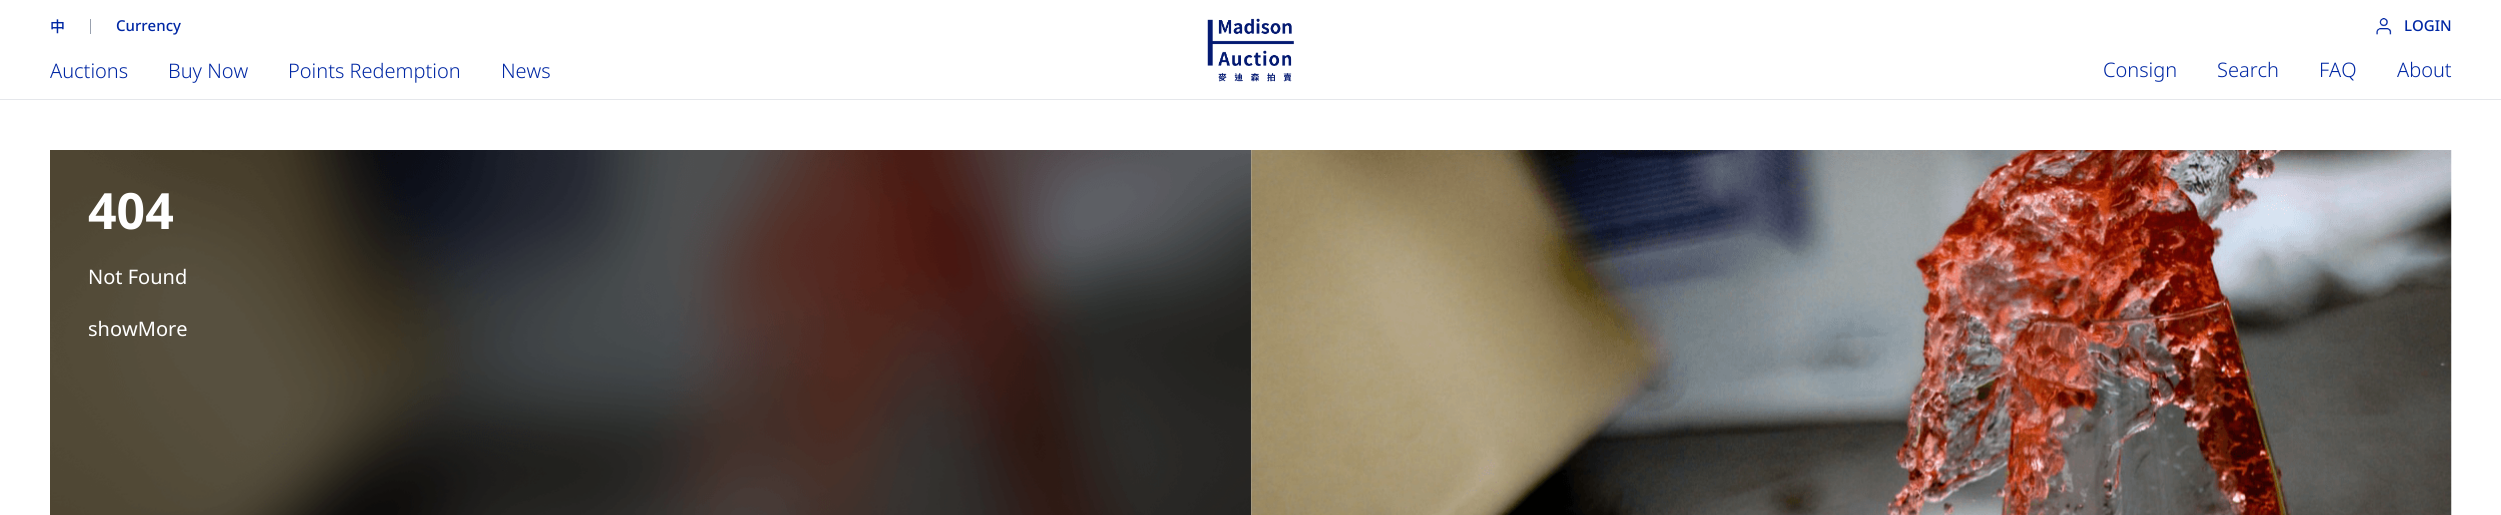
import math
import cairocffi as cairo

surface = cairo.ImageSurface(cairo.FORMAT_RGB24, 2501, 515)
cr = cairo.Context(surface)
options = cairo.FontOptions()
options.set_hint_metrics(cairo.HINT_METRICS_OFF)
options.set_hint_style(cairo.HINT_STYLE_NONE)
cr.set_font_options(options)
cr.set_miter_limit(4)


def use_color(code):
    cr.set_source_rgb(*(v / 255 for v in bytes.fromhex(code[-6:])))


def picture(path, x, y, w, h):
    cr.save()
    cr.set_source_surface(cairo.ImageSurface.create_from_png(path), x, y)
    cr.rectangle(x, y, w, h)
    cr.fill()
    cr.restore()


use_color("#ffffff")
cr.paint()
use_color("#e5e7eb")
cr.rectangle(0, 99, 2501, 1)
cr.fill()
cr.select_font_face("Noto Sans SC Medium")
cr.set_font_size(15)
use_color("#0027a4")
cr.move_to(50, 32)
cr.show_text("中")
use_color("#99a1af")
cr.rectangle(90, 19, 1, 15)
cr.fill()
cr.select_font_face("Noto Sans Medium")
use_color("#0027a4")
cr.move_to(116, 31)
cr.show_text("Currency")
cr.select_font_face("Noto Sans Light")
cr.set_font_size(20)
cr.move_to(50, 78)
cr.show_text("Auctions")
cr.move_to(168, 78)
cr.show_text("Buy Now")
cr.move_to(288, 78)
cr.show_text("Points Redemption")
cr.move_to(501, 78)
cr.show_text("News")
picture("img1.png", 1207, 18, 87, 64)
picture("img2.png", 2376, 18, 16, 17)
cr.select_font_face("Noto Sans Medium")
cr.set_font_size(15)
cr.move_to(2404, 31)
cr.show_text("LOGIN")
cr.select_font_face("Noto Sans Light")
cr.set_font_size(20)
cr.move_to(2103, 77)
cr.show_text("Consign")
cr.move_to(2217, 77)
cr.show_text("Search")
cr.move_to(2319, 77)
cr.show_text("FAQ")
cr.move_to(2397, 77)
cr.show_text("About")
picture("img3.png", 50, 150, 1202, 365)
picture("img4.png", 1251, 150, 1201, 365)
cr.select_font_face("Noto Sans", cairo.FONT_SLANT_NORMAL, cairo.FONT_WEIGHT_BOLD)
cr.set_font_size(50)
use_color("#ffffff")
cr.move_to(88, 229)
cr.show_text("404")
cr.select_font_face("Noto Sans")
cr.set_font_size(20)
cr.move_to(88, 284)
cr.show_text("Not Found")
cr.move_to(88, 336)
cr.show_text("showMore")
surface.write_to_png("result.png")
